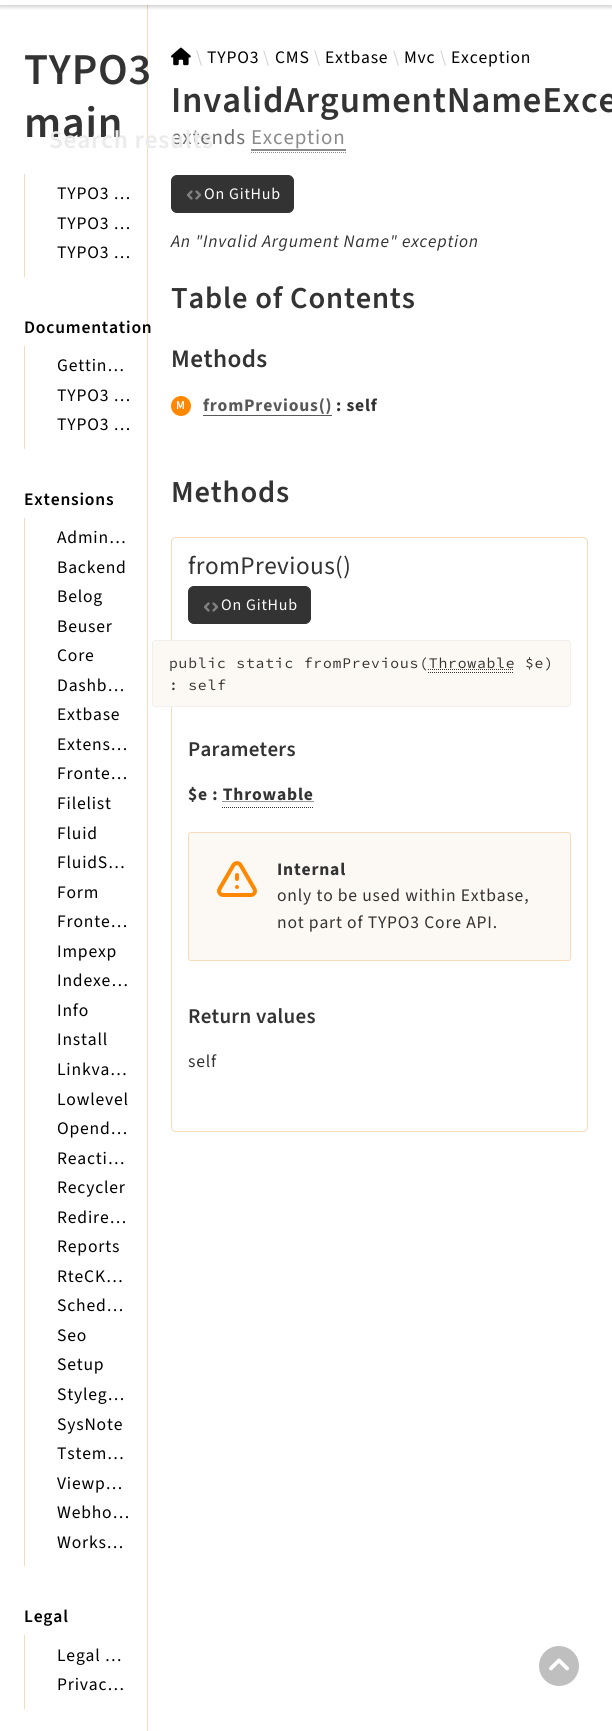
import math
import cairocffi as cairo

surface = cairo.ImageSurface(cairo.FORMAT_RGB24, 612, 1731)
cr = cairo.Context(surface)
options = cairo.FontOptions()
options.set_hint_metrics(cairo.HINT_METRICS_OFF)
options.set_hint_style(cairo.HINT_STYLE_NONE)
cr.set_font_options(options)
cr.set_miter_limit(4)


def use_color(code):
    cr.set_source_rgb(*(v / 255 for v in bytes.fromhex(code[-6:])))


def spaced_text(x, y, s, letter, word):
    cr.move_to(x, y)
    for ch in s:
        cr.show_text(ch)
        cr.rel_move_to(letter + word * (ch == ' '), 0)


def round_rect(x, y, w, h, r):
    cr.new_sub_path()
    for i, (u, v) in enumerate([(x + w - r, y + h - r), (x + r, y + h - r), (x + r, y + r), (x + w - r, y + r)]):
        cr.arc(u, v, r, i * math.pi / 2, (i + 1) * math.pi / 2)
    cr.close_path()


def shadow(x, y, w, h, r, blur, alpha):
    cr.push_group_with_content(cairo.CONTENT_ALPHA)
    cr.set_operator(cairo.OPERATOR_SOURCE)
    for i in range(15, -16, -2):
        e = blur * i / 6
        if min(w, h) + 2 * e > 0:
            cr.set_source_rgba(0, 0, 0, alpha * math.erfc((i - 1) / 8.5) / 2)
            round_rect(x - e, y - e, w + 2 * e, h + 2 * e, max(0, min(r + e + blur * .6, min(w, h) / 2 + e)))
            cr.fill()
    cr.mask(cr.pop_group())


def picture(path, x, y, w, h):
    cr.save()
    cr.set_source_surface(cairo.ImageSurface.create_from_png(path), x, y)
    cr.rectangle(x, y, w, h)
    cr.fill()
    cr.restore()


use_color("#ffffff")
cr.paint()
use_color("#f7dbba")
cr.rectangle(147, 5, 1, 1726)
cr.fill()
cr.save()
cr.rectangle(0, 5, 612, 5)
cr.clip()
use_color("#000000")
shadow(0, -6, 612, 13, 0, 2, 0.2)
cr.restore()
cr.select_font_face("Source Sans 3 SemiBold")
cr.set_font_size(44)
use_color("#333333")
spaced_text(24, 84, "TYPO3", 0.8, 0)
spaced_text(24, 137, "main", 0.8, 0)
use_color("#f7dbba")
cr.rectangle(24, 174, 1, 103)
cr.fill()
cr.select_font_face("Source Sans 3 ExtraLight")
cr.set_font_size(17.6)
use_color("#000000")
spaced_text(57, 199, "TYPO3 …", 0.8, 0)
spaced_text(57, 229, "TYPO3 …", 0.8, 0)
spaced_text(57, 258, "TYPO3 …", 0.8, 0)
cr.select_font_face("Source Sans 3 SemiBold")
spaced_text(24, 333, "Documentation", 0.8, 0)
use_color("#f7dbba")
cr.rectangle(24, 346, 1, 103)
cr.fill()
cr.select_font_face("Source Sans 3 ExtraLight")
use_color("#000000")
spaced_text(57, 371, "Gettin…", 0.8, 0)
spaced_text(57, 401, "TYPO3 …", 0.8, 0)
spaced_text(57, 430, "TYPO3 …", 0.8, 0)
cr.select_font_face("Source Sans 3 SemiBold")
spaced_text(24, 505, "Extensions", 0.8, 0)
use_color("#f7dbba")
cr.rectangle(24, 518, 1, 1048)
cr.fill()
cr.select_font_face("Source Sans 3 ExtraLight")
use_color("#000000")
spaced_text(57, 543, "Admin…", 0.8, 0)
spaced_text(57, 573, "Backend", 0.8, 0)
spaced_text(57, 602, "Belog", 0.8, 0)
spaced_text(57, 632, "Beuser", 0.8, 0)
spaced_text(57, 661, "Core", 0.8, 0)
spaced_text(57, 691, "Dashb…", 0.8, 0)
spaced_text(57, 720, "Extbase", 0.8, 0)
spaced_text(57, 750, "Extens…", 0.8, 0)
spaced_text(57, 779, "Fronte…", 0.8, 0)
spaced_text(57, 809, "Filelist", 0.8, 0)
spaced_text(57, 839, "Fluid", 0.8, 0)
spaced_text(57, 868, "FluidS…", 0.8, 0)
spaced_text(57, 898, "Form", 0.8, 0)
spaced_text(57, 927, "Fronte…", 0.8, 0)
spaced_text(57, 957, "Impexp", 0.8, 0)
spaced_text(57, 986, "Indexe…", 0.8, 0)
spaced_text(57, 1016, "Info", 0.8, 0)
spaced_text(57, 1045, "Install", 0.8, 0)
spaced_text(57, 1075, "Linkva…", 0.8, 0)
spaced_text(57, 1105, "Lowlevel", 0.8, 0)
spaced_text(57, 1134, "Opend…", 0.8, 0)
spaced_text(57, 1164, "Reacti…", 0.8, 0)
spaced_text(57, 1193, "Recycler", 0.8, 0)
spaced_text(57, 1223, "Redire…", 0.8, 0)
spaced_text(57, 1252, "Reports", 0.8, 0)
spaced_text(57, 1282, "RteCK…", 0.8, 0)
spaced_text(57, 1311, "Sched…", 0.8, 0)
spaced_text(57, 1341, "Seo", 0.8, 0)
spaced_text(57, 1370, "Setup", 0.8, 0)
spaced_text(57, 1400, "Styleg…", 0.8, 0)
spaced_text(57, 1430, "SysNote", 0.8, 0)
spaced_text(57, 1459, "Tstem…", 0.8, 0)
spaced_text(57, 1489, "Viewp…", 0.8, 0)
spaced_text(57, 1518, "Webho…", 0.8, 0)
spaced_text(57, 1548, "Works…", 0.8, 0)
cr.select_font_face("Source Sans 3 SemiBold")
spaced_text(24, 1622, "Legal", 0.8, 0)
use_color("#f7dbba")
cr.rectangle(24, 1635, 1, 74)
cr.fill()
cr.select_font_face("Source Sans 3 ExtraLight")
use_color("#000000")
spaced_text(57, 1661, "Legal …", 0.8, 0)
spaced_text(57, 1690, "Privac…", 0.8, 0)
picture("img1.png", 171, 47, 20, 19)
use_color("#d1d1d1")
spaced_text(196, 63, "\\", 0.8, 0)
use_color("#000000")
spaced_text(207, 63, "TYPO3", 0.8, 0)
use_color("#d1d1d1")
spaced_text(263, 63, "\\", 0.8, 0)
use_color("#000000")
spaced_text(275, 63, "CMS", 0.8, 0)
use_color("#d1d1d1")
spaced_text(314, 63, "\\", 0.8, 0)
use_color("#000000")
spaced_text(325, 63, "Extbase", 0.8, 0)
use_color("#d1d1d1")
spaced_text(393, 63, "\\", 0.8, 0)
use_color("#000000")
spaced_text(404, 63, "Mvc", 0.8, 0)
use_color("#d1d1d1")
spaced_text(440, 63, "\\", 0.8, 0)
use_color("#000000")
spaced_text(451, 63, "Exception", 0.8, 0)
cr.select_font_face("Source Sans 3 SemiBold")
cr.set_font_size(36.5)
use_color("#333333")
spaced_text(171, 112, "InvalidArgumentNameExce", 0.8, 0)
cr.select_font_face("Source Sans 3 ExtraLight")
cr.set_font_size(21)
use_color("#707070")
spaced_text(171, 144, "extends", 0.8, 0)
use_color("#8b8b8b")
spaced_text(251, 144, "Exception", 0.8, 0)
cr.new_path()
cr.move_to(251, 152.5)
cr.line_to(346, 152.5)
cr.set_line_width(1)
cr.set_dash([1, 1])
cr.stroke()
cr.rectangle(251, 149, 95, 2)
cr.fill()
use_color("#333333")
round_rect(171.5, 175.5, 122, 37, 5.5)
cr.fill_preserve()
cr.set_dash([])
cr.stroke()
picture("img2.png", 187, 190, 14, 10)
cr.set_font_size(16)
use_color("#ffffff")
spaced_text(204, 199, "On GitHub", 0.8, 0)
cr.select_font_face("Source Sans 3 ExtraLight", cairo.FONT_SLANT_ITALIC)
cr.set_font_size(17.6)
use_color("#333333")
spaced_text(171, 247, "An \"Invalid Argument Name\" exception", 0.8, 0)
cr.select_font_face("Source Sans 3 SemiBold")
cr.set_font_size(30.5)
spaced_text(171, 308, "Table of Contents", 0.8, 0)
cr.set_font_size(25.25)
spaced_text(171, 367, "Methods", 0.4, 0)
use_color("#ff8800")
cr.new_path()
cr.arc(181, 406, 10, 0, 2 * math.pi)
cr.fill()
cr.set_font_size(12)
use_color("#ffffff")
spaced_text(176, 409, "M", 0.8, 0)
cr.select_font_face("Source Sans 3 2 ExtraLight")
cr.set_font_size(17.6)
use_color("#595959")
spaced_text(203, 411, "fromPrevious()", 0.8, 0)
cr.rectangle(203, 415, 129, 1)
cr.fill()
use_color("#333333")
spaced_text(336, 411, ": self", 0.8, 0)
cr.select_font_face("Source Sans 3 SemiBold")
cr.set_font_size(30.5)
spaced_text(171, 502, "Methods", 0.8, 0)
round_rect(171.5, 537.5, 416, 594, 4.5)
use_color("#f7dbba")
cr.stroke()
cr.select_font_face("Source Sans 3 ExtraLight")
cr.set_font_size(25.25)
use_color("#333333")
spaced_text(188, 574, "fromPrevious()", 0.4, 0)
round_rect(188.5, 586.5, 122, 37, 5.5)
cr.fill_preserve()
cr.stroke()
picture("img2.png", 204, 602, 14, 10)
cr.set_font_size(16)
use_color("#ffffff")
spaced_text(221, 610, "On GitHub", 0.8, 0)
use_color("#fcf9f5")
round_rect(152.5, 640.5, 418, 66, 2.5)
cr.fill_preserve()
use_color("#f0f0f0")
cr.stroke()
cr.select_font_face("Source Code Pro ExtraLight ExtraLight")
cr.set_font_size(14.7)
use_color("#333333")
spaced_text(169, 668, "public static fromPrevious(Throwable $e)", 0.8, 0)
cr.new_path()
cr.move_to(428, 669.5)
cr.line_to(514, 669.5)
cr.set_dash([1, 1])
cr.stroke()
cr.new_path()
cr.move_to(428, 672.5)
cr.line_to(514, 672.5)
cr.stroke()
spaced_text(169, 690, ": self", 0.8, 0)
cr.select_font_face("Source Sans 3 SemiBold")
cr.set_font_size(21)
spaced_text(188, 756, "Parameters", 0.25, 0)
cr.select_font_face("Source Sans 3 2 ExtraLight")
cr.set_font_size(17.6)
spaced_text(188, 800, "$e : Throwable", 0.8, 0)
cr.new_path()
cr.move_to(222.5, 801.5)
cr.line_to(313.5, 801.5)
cr.stroke()
cr.new_path()
cr.move_to(222, 807.5)
cr.line_to(313, 807.5)
cr.stroke()
use_color("#fcf9f5")
round_rect(188.5, 832.5, 382, 128, 2.5)
cr.fill_preserve()
use_color("#f7dbba")
cr.set_dash([])
cr.stroke()
cr.new_path()
cr.move_to(237, 875)
cr.line_to(237, 879)
cr.move_to(237, 887)
cr.line_to(237, 887)
cr.move_to(223, 895)
cr.line_to(251, 895)
cr.curve_to(254, 895, 256, 891.5, 254.5, 889)
cr.line_to(240.5, 865)
cr.curve_to(239, 862.5, 235, 862.5, 233.5, 865)
cr.line_to(219.5, 889)
cr.curve_to(218, 891.5, 220, 895, 223, 895)
cr.close_path()
use_color("#ff8800")
cr.set_line_width(4)
cr.set_line_cap(cairo.LINE_CAP_ROUND)
cr.set_line_join(cairo.LINE_JOIN_ROUND)
cr.stroke()
use_color("#333333")
spaced_text(277, 875, "Internal", 0.8, 0)
cr.select_font_face("Source Sans 3 ExtraLight")
spaced_text(277, 901, "only to be used within Extbase,", 0.8, 0)
spaced_text(277, 928, "not part of TYPO3 Core API.", 0.8, 0)
cr.select_font_face("Source Sans 3 SemiBold")
cr.set_font_size(21)
spaced_text(188, 1023, "Return values", 0.25, 0)
cr.select_font_face("Source Sans 3 ExtraLight")
cr.set_font_size(17.6)
spaced_text(188, 1067, "self", 0.8, 0)
cr.select_font_face("Source Sans 3 SemiBold")
cr.set_font_size(25.25)
use_color("#ebebeb")
spaced_text(49, 148, "Search results", 0.8, 0)
picture("img3.png", 539, 1646, 40, 40)
surface.write_to_png("result.png")
